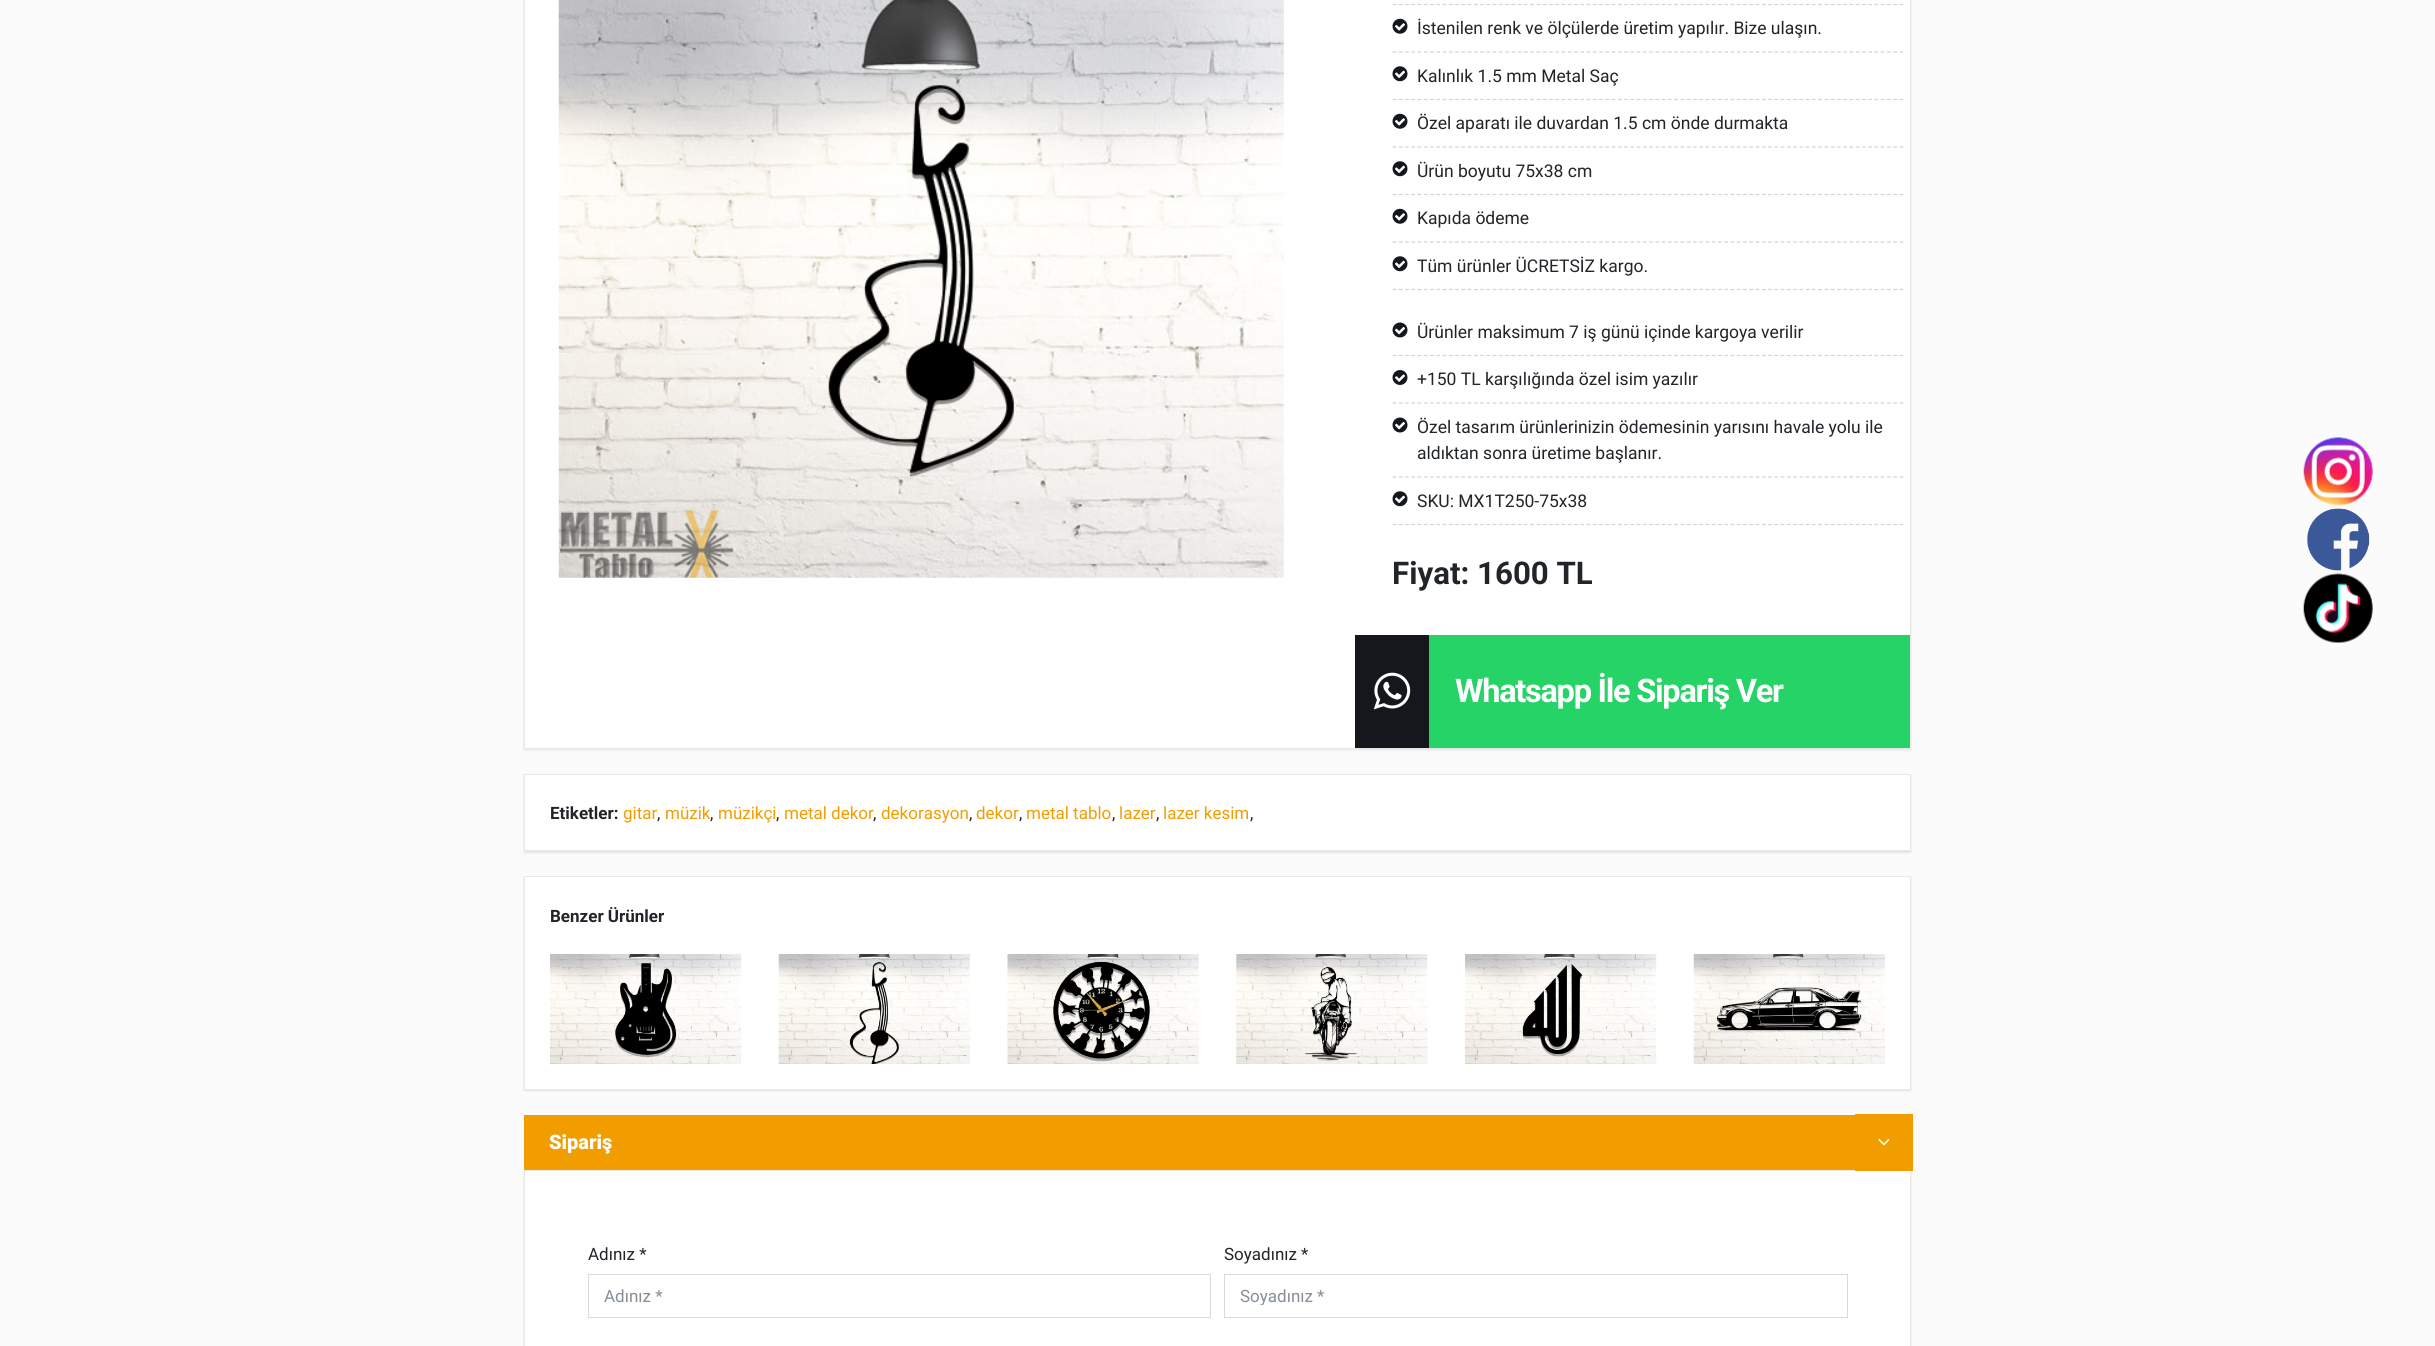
import math
import cairocffi as cairo

surface = cairo.ImageSurface(cairo.FORMAT_RGB24, 2435, 1346)
cr = cairo.Context(surface)
options = cairo.FontOptions()
options.set_hint_metrics(cairo.HINT_METRICS_OFF)
options.set_hint_style(cairo.HINT_STYLE_NONE)
cr.set_font_options(options)
cr.set_miter_limit(4)


def use_color(code):
    cr.set_source_rgb(*(v / 255 for v in bytes.fromhex(code[-6:])))


def spaced_text(x, y, s, letter, word):
    cr.move_to(x, y)
    for ch in s:
        cr.show_text(ch)
        cr.rel_move_to(letter + word * (ch == ' '), 0)


def round_rect(x, y, w, h, r):
    cr.new_sub_path()
    for i, (u, v) in enumerate([(x + w - r, y + h - r), (x + r, y + h - r), (x + r, y + r), (x + w - r, y + r)]):
        cr.arc(u, v, r, i * math.pi / 2, (i + 1) * math.pi / 2)
    cr.close_path()


def shadow(x, y, w, h, r, blur, alpha):
    cr.push_group_with_content(cairo.CONTENT_ALPHA)
    cr.set_operator(cairo.OPERATOR_SOURCE)
    for i in range(15, -16, -2):
        e = blur * i / 6
        if min(w, h) + 2 * e > 0:
            cr.set_source_rgba(0, 0, 0, alpha * math.erfc((i - 1) / 8.5) / 2)
            round_rect(x - e, y - e, w + 2 * e, h + 2 * e, max(0, min(r + e + blur * .6, min(w, h) / 2 + e)))
            cr.fill()
    cr.mask(cr.pop_group())


def picture(path, x, y, w, h):
    cr.save()
    cr.set_source_surface(cairo.ImageSurface.create_from_png(path), x, y)
    cr.rectangle(x, y, w, h)
    cr.fill()
    cr.restore()


use_color("#fbfbfb")
cr.paint()
use_color("#000000")
shadow(524, -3, 1387, 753, 0, 1, 0.1)
use_color("#ffffff")
cr.rectangle(524.5, -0.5, 1386, 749)
cr.fill_preserve()
use_color("#e9e9e9")
cr.set_line_width(1)
cr.stroke()
picture("img1.png", 558, 0, 726, 578)
cr.new_path()
cr.move_to(1392.5, 4.5)
cr.line_to(1904, 4.5)
use_color("#d3d3d3")
cr.set_line_width(1.2)
cr.set_dash([3.75, 2.51])
cr.stroke()
cr.new_path()
cr.move_to(1392.5, 52)
cr.line_to(1904, 52)
cr.stroke()
picture("img2.png", 1392, 18, 16, 16)
cr.select_font_face("Roboto")
cr.set_font_size(17.5)
use_color("#212529")
cr.move_to(1417, 34)
cr.show_text("İstenilen renk ve ölçülerde üretim yapılır. Bize ulaşın.")
cr.new_path()
cr.move_to(1392.5, 99.5)
cr.line_to(1904, 99.5)
use_color("#d3d3d3")
cr.stroke()
picture("img3.png", 1392, 66, 16, 16)
use_color("#212529")
cr.move_to(1417, 82)
cr.show_text("Kalınlık 1.5 mm Metal Saç")
cr.new_path()
cr.move_to(1392.5, 147)
cr.line_to(1904, 147)
use_color("#d3d3d3")
cr.stroke()
picture("img2.png", 1392, 113, 16, 16)
use_color("#212529")
cr.move_to(1417, 129)
cr.show_text("Özel aparatı ile duvardan 1.5 cm önde durmakta")
cr.new_path()
cr.move_to(1392.5, 194.5)
cr.line_to(1904, 194.5)
use_color("#d3d3d3")
cr.stroke()
picture("img3.png", 1392, 161, 16, 16)
use_color("#212529")
cr.move_to(1417, 177)
cr.show_text("Ürün boyutu 75x38 cm")
cr.new_path()
cr.move_to(1392.5, 242)
cr.line_to(1904, 242)
use_color("#d3d3d3")
cr.stroke()
picture("img2.png", 1392, 208, 16, 16)
use_color("#212529")
cr.move_to(1417, 224)
cr.show_text("Kapıda ödeme")
cr.new_path()
cr.move_to(1392.5, 289.5)
cr.line_to(1904, 289.5)
use_color("#d3d3d3")
cr.stroke()
picture("img3.png", 1392, 256, 16, 16)
use_color("#212529")
cr.move_to(1417, 272)
cr.show_text("Tüm ürünler ÜCRETSİZ kargo.")
cr.new_path()
cr.move_to(1392.5, 355.5)
cr.line_to(1904, 355.5)
use_color("#d3d3d3")
cr.stroke()
picture("img4.png", 1392, 322, 16, 16)
use_color("#212529")
cr.move_to(1417, 338)
cr.show_text("Ürünler maksimum 7 iş günü içinde kargoya verilir")
cr.new_path()
cr.move_to(1392.5, 403)
cr.line_to(1904, 403)
use_color("#d3d3d3")
cr.stroke()
picture("img5.png", 1392, 370, 16, 15)
use_color("#212529")
cr.move_to(1417, 385)
cr.show_text("+150 TL karşılığında özel isim yazılır")
cr.new_path()
cr.move_to(1392.5, 477)
cr.line_to(1904, 477)
use_color("#d3d3d3")
cr.stroke()
picture("img4.png", 1392, 417, 16, 16)
use_color("#212529")
cr.move_to(1417, 433)
cr.show_text("Özel tasarım ürünlerinizin ödemesinin yarısını havale yolu ile")
cr.move_to(1417, 459)
cr.show_text("aldıktan sonra üretime başlanır.")
cr.new_path()
cr.move_to(1392.5, 524.5)
cr.line_to(1904, 524.5)
use_color("#d3d3d3")
cr.stroke()
picture("img3.png", 1392, 491, 16, 16)
use_color("#212529")
cr.move_to(1417, 507)
cr.show_text("SKU: MX1T250-75x38")
cr.select_font_face("Roboto", cairo.FONT_SLANT_NORMAL, cairo.FONT_WEIGHT_BOLD)
cr.set_font_size(31.25)
cr.move_to(1392, 584)
cr.show_text("Fiyat: 1600 TL")
use_color("#25d366")
cr.rectangle(1429, 635, 481, 113)
cr.fill()
use_color("#14181c")
cr.rectangle(1355, 635, 74, 113)
cr.fill()
picture("img6.png", 1373, 672, 38, 38)
cr.set_font_size(32.5)
use_color("#ffffff")
spaced_text(1455, 702, "Whatsapp İle Sipariş Ver", -1.25, 0)
use_color("#000000")
shadow(524, 775, 1387, 78, 0, 1, 0.1)
use_color("#ffffff")
cr.rectangle(524.5, 774.5, 1386, 76)
cr.fill_preserve()
use_color("#e9e9e9")
cr.set_line_width(1)
cr.set_dash([])
cr.stroke()
cr.set_font_size(17)
use_color("#212529")
cr.move_to(550, 819)
cr.show_text("Etiketler:")
cr.select_font_face("Roboto")
use_color("#f19d00")
cr.move_to(623, 819)
cr.show_text("gitar")
use_color("#212529")
cr.move_to(657, 819)
cr.show_text(",")
use_color("#f19d00")
cr.move_to(665, 819)
cr.show_text("müzik")
use_color("#212529")
cr.move_to(710, 819)
cr.show_text(",")
use_color("#f19d00")
cr.move_to(718, 819)
cr.show_text("müzikçi")
use_color("#212529")
cr.move_to(776, 819)
cr.show_text(",")
use_color("#f19d00")
cr.move_to(784, 819)
cr.show_text("metal dekor")
use_color("#212529")
cr.move_to(873, 819)
cr.show_text(",")
use_color("#f19d00")
cr.move_to(881, 819)
cr.show_text("dekorasyon")
use_color("#212529")
cr.move_to(969, 819)
cr.show_text(",")
use_color("#f19d00")
cr.move_to(976, 819)
cr.show_text("dekor")
use_color("#212529")
cr.move_to(1019, 819)
cr.show_text(",")
use_color("#f19d00")
cr.move_to(1026, 819)
cr.show_text("metal tablo")
use_color("#212529")
cr.move_to(1112, 819)
cr.show_text(",")
use_color("#f19d00")
cr.move_to(1119, 819)
cr.show_text("lazer")
use_color("#212529")
cr.move_to(1156, 819)
cr.show_text(",")
use_color("#f19d00")
cr.move_to(1163, 819)
cr.show_text("lazer kesim")
use_color("#212529")
cr.move_to(1250, 819)
cr.show_text(",")
use_color("#000000")
shadow(524, 878, 1387, 213, 0, 1, 0.1)
use_color("#ffffff")
cr.rectangle(524.5, 876.5, 1386, 213)
cr.fill_preserve()
use_color("#e9e9e9")
cr.stroke()
cr.select_font_face("Roboto", cairo.FONT_SLANT_NORMAL, cairo.FONT_WEIGHT_BOLD)
use_color("#212529")
cr.move_to(550, 922)
cr.show_text("Benzer Ürünler")
picture("img7.png", 550, 954, 192, 110)
picture("img8.png", 778, 954, 192, 110)
picture("img9.png", 1007, 954, 192, 110)
picture("img10.png", 1236, 954, 192, 110)
picture("img11.png", 1465, 954, 192, 110)
picture("img12.png", 1693, 954, 192, 110)
use_color("#000000")
shadow(524, 1171, 1387, 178, 0, 1, 0.1)
use_color("#f19d00")
cr.rectangle(524, 1115, 1331, 55)
cr.fill()
cr.select_font_face("Roboto Black")
cr.set_font_size(20)
use_color("#ffffff")
cr.move_to(549, 1149)
cr.show_text("Sipariş")
cr.rectangle(524.5, 1170.5, 1386, 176)
cr.fill_preserve()
use_color("#e9e9e9")
cr.stroke()
use_color("#f19d00")
cr.rectangle(1855, 1114, 58, 57)
cr.fill()
picture("img13.png", 1878, 1138, 12, 8)
cr.select_font_face("Roboto")
cr.set_font_size(17)
use_color("#212529")
cr.move_to(588, 1260)
cr.show_text("Adınız *")
cr.rectangle(588.5, 1274.5, 622, 43)
use_color("#d9d9d9")
cr.stroke()
use_color("#868e96")
cr.move_to(604, 1302)
cr.show_text("Adınız *")
use_color("#212529")
cr.move_to(1224, 1260)
cr.show_text("Soyadınız *")
cr.rectangle(1224.5, 1274.5, 623, 43)
use_color("#d9d9d9")
cr.stroke()
cr.save()
cr.rectangle(1240, 1285, 591, 20)
cr.clip()
use_color("#868e96")
cr.move_to(1240, 1302)
cr.show_text("Soyadınız *")
cr.restore()
picture("img14.png", 2303, 437, 70, 69)
picture("img15.png", 2307, 508, 63, 63)
picture("img16.png", 2303, 573, 70, 70)
surface.write_to_png("result.png")
